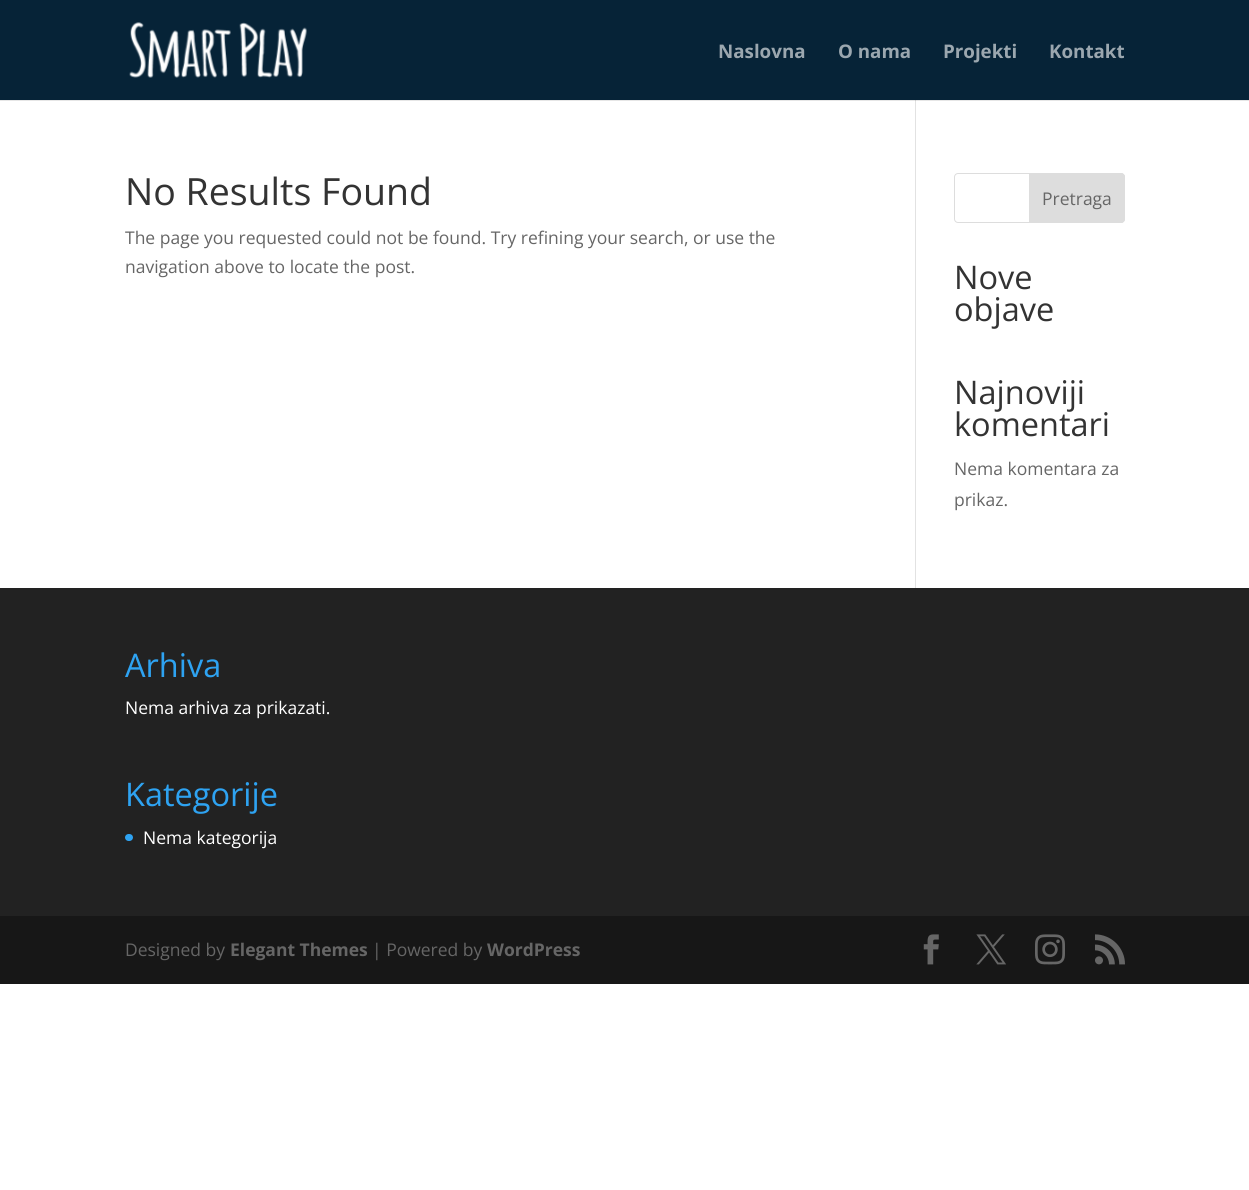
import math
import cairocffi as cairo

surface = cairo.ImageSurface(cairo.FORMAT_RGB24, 1249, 1190)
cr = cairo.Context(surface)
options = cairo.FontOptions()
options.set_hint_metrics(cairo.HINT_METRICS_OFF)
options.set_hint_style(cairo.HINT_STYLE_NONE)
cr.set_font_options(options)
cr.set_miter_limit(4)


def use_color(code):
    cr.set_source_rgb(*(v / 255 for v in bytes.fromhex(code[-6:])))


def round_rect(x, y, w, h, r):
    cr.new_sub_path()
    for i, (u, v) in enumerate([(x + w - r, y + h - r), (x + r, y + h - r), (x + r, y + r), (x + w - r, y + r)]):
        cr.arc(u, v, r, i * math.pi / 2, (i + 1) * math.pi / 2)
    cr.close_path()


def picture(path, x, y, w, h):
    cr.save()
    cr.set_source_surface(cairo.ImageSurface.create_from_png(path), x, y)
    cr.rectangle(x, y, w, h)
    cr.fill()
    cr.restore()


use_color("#ffffff")
cr.paint()
use_color("#e6e6e6")
cr.rectangle(0, 100, 1249, 1)
cr.fill()
use_color("#062337")
cr.rectangle(0, 0, 1249, 100)
cr.fill()
picture("img1.png", 129, 22, 178, 56)
cr.select_font_face("Open Sans", cairo.FONT_SLANT_NORMAL, cairo.FONT_WEIGHT_BOLD)
cr.set_font_size(18.75)
use_color("#9ba7af")
cr.move_to(718, 58)
cr.show_text("Naslovna")
cr.move_to(838, 58)
cr.show_text("O nama")
cr.move_to(943, 58)
cr.show_text("Projekti")
cr.move_to(1049, 58)
cr.show_text("Kontakt")
use_color("#e2e2e2")
cr.rectangle(915, 100, 1, 488)
cr.fill()
use_color("#cbcbcb")
cr.rectangle(915, 100, 1, 1)
cr.fill()
cr.select_font_face("Open Sans")
cr.set_font_size(37.5)
use_color("#333333")
cr.move_to(125, 205)
cr.show_text("No Results Found")
cr.set_font_size(17.5)
use_color("#666666")
cr.move_to(125, 244)
cr.show_text("The page you requested could not be found. Try refining your search, or use the")
cr.move_to(125, 273)
cr.show_text("navigation above to locate the post.")
round_rect(954.5, 173.5, 170, 49, 3.5)
use_color("#dddddd")
cr.set_line_width(1)
cr.stroke()
cr.new_path()
cr.move_to(1029.5, 173.5)
cr.line_to(1121, 173.5)
cr.curve_to(1123, 173.5, 1124.5, 175, 1124.5, 177)
cr.line_to(1124.5, 219)
cr.curve_to(1124.5, 221, 1123, 222.5, 1121, 222.5)
cr.line_to(1029.5, 222.5)
cr.close_path()
cr.fill_preserve()
cr.stroke()
use_color("#666666")
cr.move_to(1042, 205)
cr.show_text("Pretraga")
cr.set_font_size(32.5)
use_color("#333333")
cr.move_to(954, 289)
cr.show_text("Nove")
cr.move_to(954, 321)
cr.show_text("objave")
cr.move_to(954, 404)
cr.show_text("Najnoviji")
cr.move_to(954, 436)
cr.show_text("komentari")
cr.set_font_size(17.5)
use_color("#666666")
cr.move_to(954, 475)
cr.show_text("Nema komentara za")
cr.move_to(954, 506)
cr.show_text("prikaz.")
use_color("#222222")
cr.rectangle(0, 588, 1249, 328)
cr.fill()
cr.set_font_size(32.5)
use_color("#2ea3f2")
cr.move_to(125, 677)
cr.show_text("Arhiva")
cr.set_font_size(17.5)
use_color("#ffffff")
cr.move_to(125, 714)
cr.show_text("Nema arhiva za prikazati.")
cr.set_font_size(32.5)
use_color("#2ea3f2")
cr.move_to(125, 806)
cr.show_text("Kategorije")
round_rect(125, 834, 8, 7, 3.5)
cr.fill()
cr.set_font_size(17.5)
use_color("#ffffff")
cr.move_to(143, 844)
cr.show_text("Nema kategorija")
use_color("#171717")
cr.rectangle(0, 916, 1249, 68)
cr.fill()
use_color("#666666")
cr.move_to(125, 956)
cr.show_text("Designed by")
cr.select_font_face("Open Sans", cairo.FONT_SLANT_NORMAL, cairo.FONT_WEIGHT_BOLD)
cr.move_to(230, 956)
cr.show_text("Elegant Themes")
cr.select_font_face("Open Sans")
cr.move_to(372, 956)
cr.show_text("| Powered by")
cr.select_font_face("Open Sans", cairo.FONT_SLANT_NORMAL, cairo.FONT_WEIGHT_BOLD)
cr.move_to(487, 956)
cr.show_text("WordPress")
picture("img2.png", 923, 934, 16, 31)
picture("img3.png", 976, 934, 30, 31)
picture("img4.png", 1035, 934, 30, 31)
picture("img5.png", 1095, 934, 30, 31)
surface.write_to_png("result.png")
